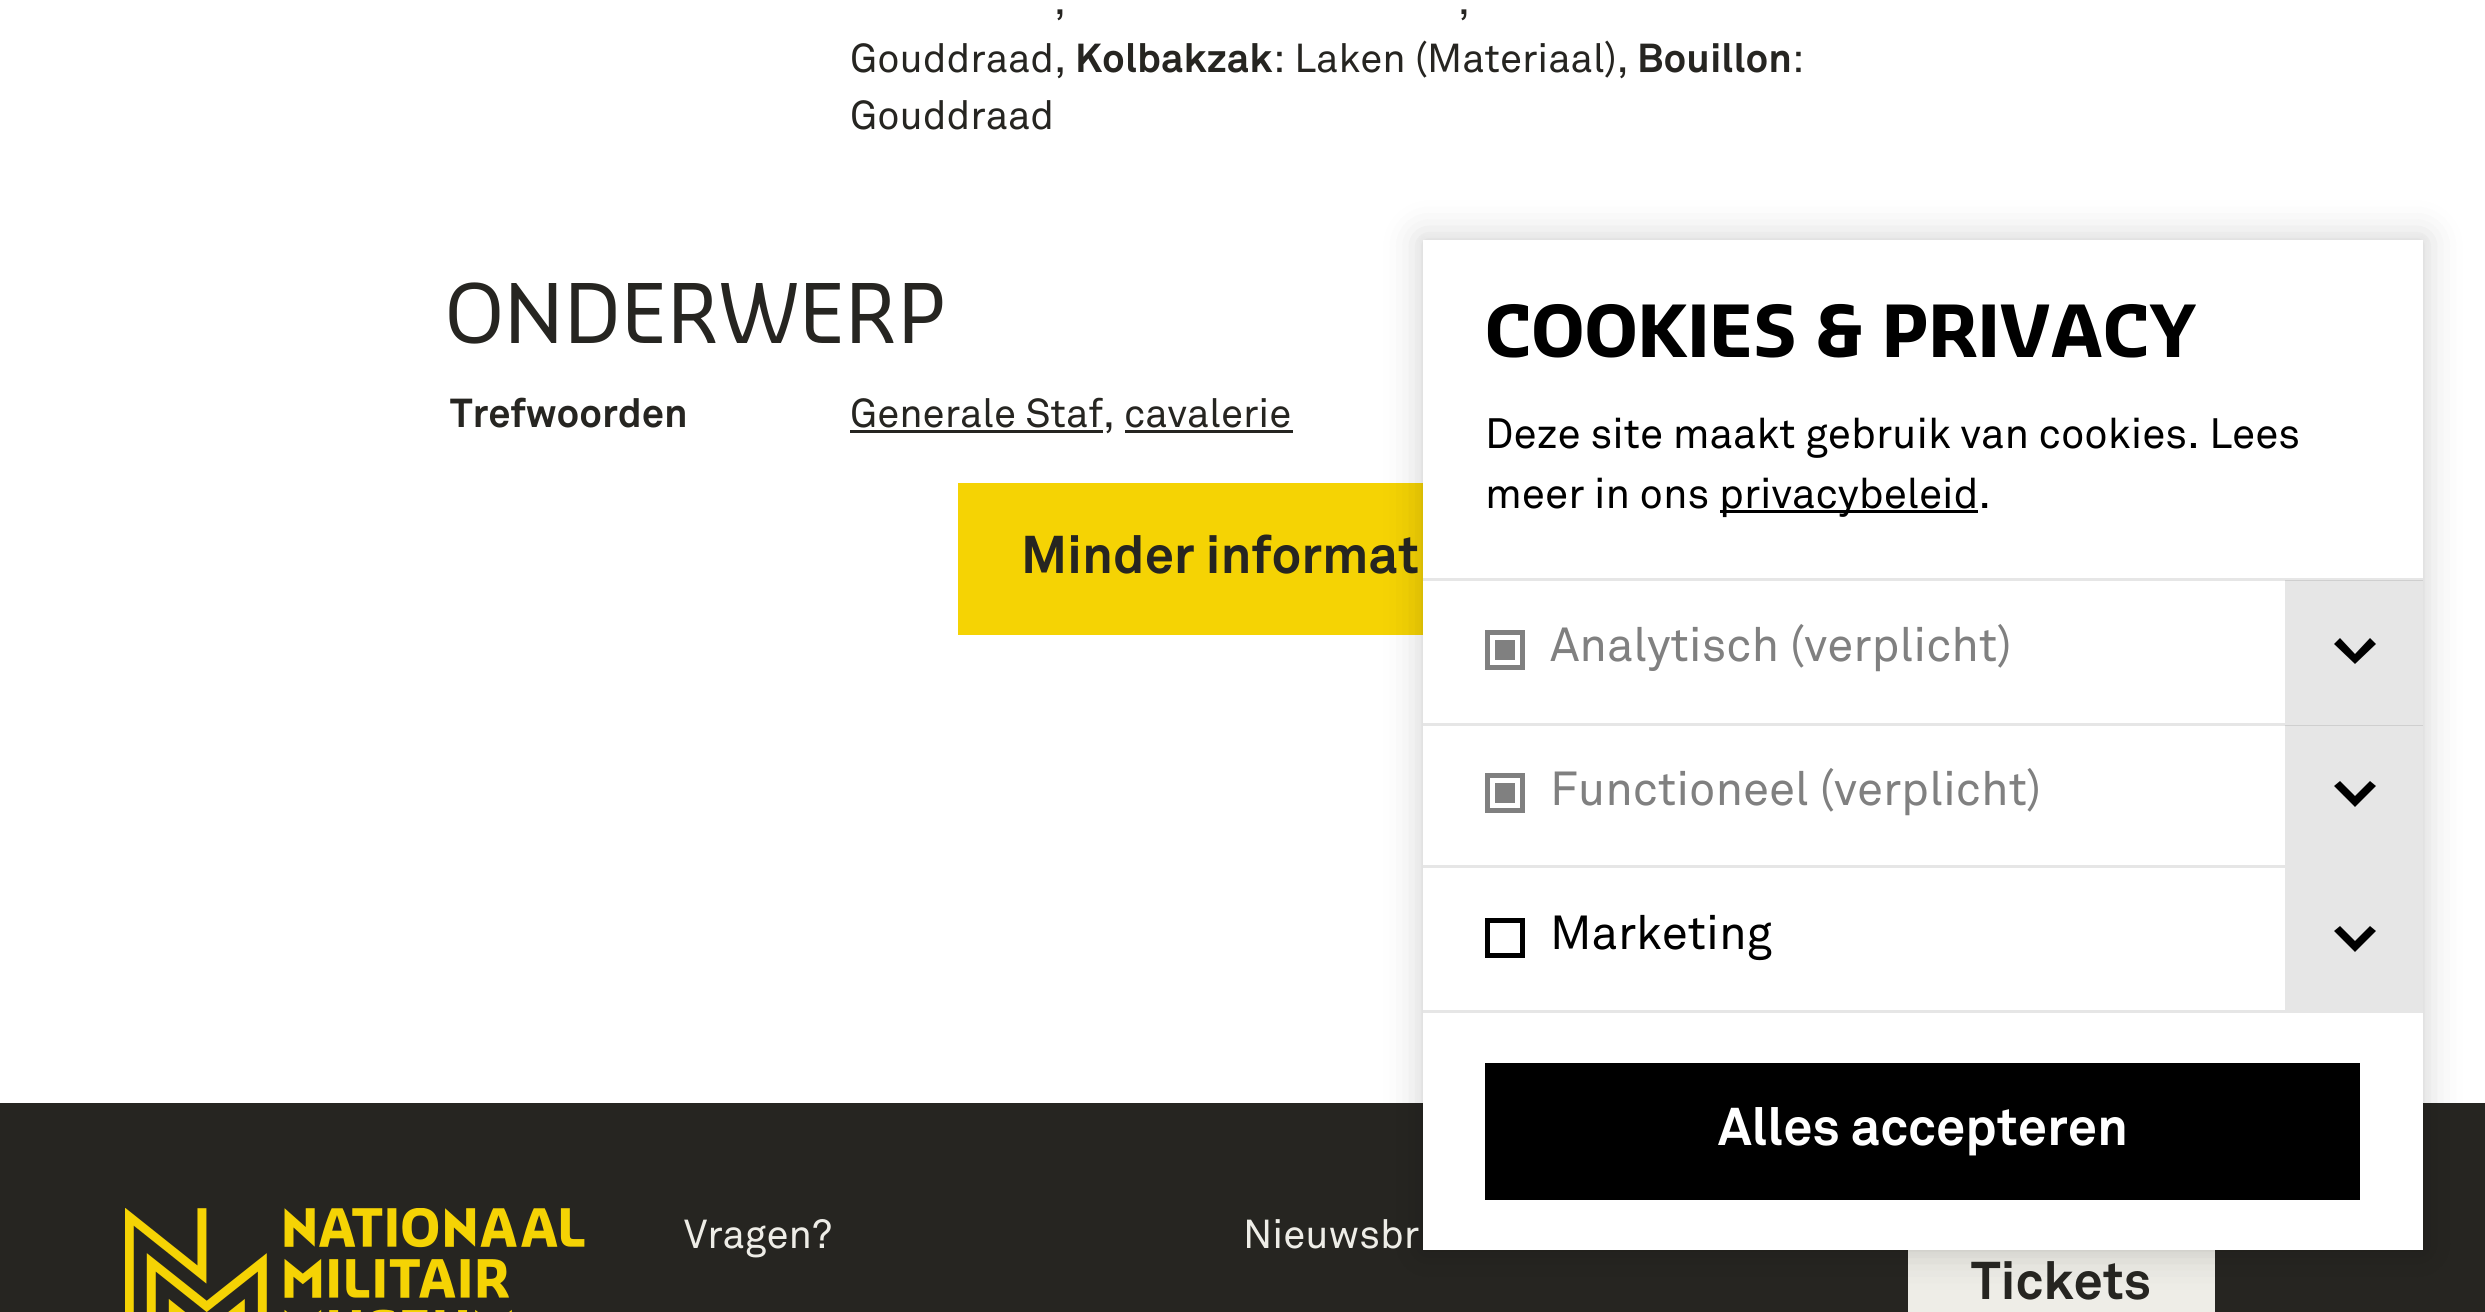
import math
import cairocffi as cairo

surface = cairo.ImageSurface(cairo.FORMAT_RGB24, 2485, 1312)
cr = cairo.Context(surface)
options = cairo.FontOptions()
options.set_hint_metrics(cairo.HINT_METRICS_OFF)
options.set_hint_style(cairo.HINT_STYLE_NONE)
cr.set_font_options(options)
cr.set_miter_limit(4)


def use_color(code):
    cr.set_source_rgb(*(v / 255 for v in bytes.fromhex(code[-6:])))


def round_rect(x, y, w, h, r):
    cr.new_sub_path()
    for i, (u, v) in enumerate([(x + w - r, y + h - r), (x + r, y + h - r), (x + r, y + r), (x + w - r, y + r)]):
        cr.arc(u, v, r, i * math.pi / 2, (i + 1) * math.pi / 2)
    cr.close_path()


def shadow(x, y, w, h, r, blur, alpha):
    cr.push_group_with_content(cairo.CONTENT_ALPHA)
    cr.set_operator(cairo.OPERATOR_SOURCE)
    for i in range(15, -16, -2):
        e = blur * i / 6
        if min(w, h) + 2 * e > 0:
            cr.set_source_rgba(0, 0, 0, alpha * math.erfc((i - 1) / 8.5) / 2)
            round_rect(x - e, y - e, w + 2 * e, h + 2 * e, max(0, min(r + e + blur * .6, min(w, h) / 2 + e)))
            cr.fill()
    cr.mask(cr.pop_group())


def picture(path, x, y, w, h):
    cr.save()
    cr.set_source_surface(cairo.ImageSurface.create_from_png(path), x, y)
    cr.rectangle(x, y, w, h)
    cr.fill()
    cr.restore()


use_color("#ffffff")
cr.paint()
cr.select_font_face("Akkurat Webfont")
cr.set_font_size(40)
use_color("#262521")
cr.move_to(1054, 14)
cr.show_text(",")
cr.move_to(1458, 14)
cr.show_text(",")
cr.move_to(850, 72)
cr.show_text("Gouddraad,")
cr.select_font_face("Akkurat Webfont", cairo.FONT_SLANT_NORMAL, cairo.FONT_WEIGHT_BOLD)
cr.move_to(1075, 72)
cr.show_text("Kolbakzak")
cr.select_font_face("Akkurat Webfont")
cr.move_to(1273, 72)
cr.show_text(": Laken (Materiaal),")
cr.select_font_face("Akkurat Webfont", cairo.FONT_SLANT_NORMAL, cairo.FONT_WEIGHT_BOLD)
cr.move_to(1637, 72)
cr.show_text("Bouillon")
cr.select_font_face("Akkurat Webfont")
cr.move_to(1792, 72)
cr.show_text(":")
cr.move_to(850, 129)
cr.show_text("Gouddraad")
cr.select_font_face("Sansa")
cr.set_font_size(80)
cr.move_to(445, 343)
cr.show_text("ONDERWERP")
cr.select_font_face("Akkurat Webfont", cairo.FONT_SLANT_NORMAL, cairo.FONT_WEIGHT_BOLD)
cr.set_font_size(40)
cr.move_to(450, 427)
cr.show_text("Trefwoorden")
cr.rectangle(850, 430, 253, 3)
cr.fill()
cr.select_font_face("Akkurat Webfont")
cr.move_to(850, 427)
cr.show_text("Generale Staf, cavalerie")
cr.rectangle(1125, 430, 168, 3)
cr.fill()
use_color("#f5d304")
cr.rectangle(958, 483, 465, 152)
cr.fill()
cr.select_font_face("Akkurat Webfont", cairo.FONT_SLANT_NORMAL, cairo.FONT_WEIGHT_BOLD)
cr.set_font_size(52.5)
use_color("#262521")
cr.move_to(1021, 573)
cr.show_text("Minder informat")
cr.rectangle(0, 1103, 2485, 209)
cr.fill()
use_color("#eeede7")
cr.rectangle(1908, 1250, 307, 62)
cr.fill()
use_color("#000000")
shadow(1423, 240, 1000, 1010, 0, 4, 0.05)
shadow(1418, 235, 1010, 1020, 0, 19, 0.15)
use_color("#ffffff")
cr.rectangle(1423, 240, 1000, 1010)
cr.fill()
cr.select_font_face("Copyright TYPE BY", cairo.FONT_SLANT_NORMAL, cairo.FONT_WEIGHT_BOLD)
cr.set_font_size(70)
use_color("#000000")
cr.move_to(1485, 357)
cr.show_text("COOKIES & PRIVACY")
cr.select_font_face("Akkurat Webfont")
cr.set_font_size(42)
cr.move_to(1485, 448)
cr.show_text("Deze site maakt gebruik van cookies. Lees")
cr.move_to(1485, 508)
cr.show_text("meer in ons")
cr.rectangle(1720, 510, 258, 3)
cr.fill()
cr.move_to(1719, 508)
cr.show_text("privacybeleid.")
use_color("#e6e6e6")
cr.rectangle(1423, 1010, 1000, 3)
cr.fill()
cr.rectangle(1423, 578, 1000, 3)
cr.fill()
cr.rectangle(1487.5, 632.5, 35, 35)
use_color("#808080")
cr.set_line_width(5)
cr.stroke()
cr.rectangle(1495, 640, 20, 20)
cr.fill()
cr.set_font_size(47.25)
cr.move_to(1550, 661)
cr.show_text("Analytisch (verplicht)")
cr.set_source_rgba(0, 0, 0, 0.1)
cr.rectangle(2285, 580, 138, 143)
cr.fill()
use_color("#000000")
cr.new_path()
cr.move_to(2370, 638)
cr.line_to(2376, 644)
cr.line_to(2355, 664)
cr.line_to(2334, 644)
cr.line_to(2340, 638)
cr.line_to(2355, 654)
cr.close_path()
cr.fill()
use_color("#e6e6e6")
cr.rectangle(1423, 723, 1000, 3)
cr.fill()
cr.rectangle(1487.5, 775.5, 35, 35)
use_color("#808080")
cr.stroke()
cr.rectangle(1495, 783, 20, 20)
cr.fill()
cr.move_to(1550, 805)
cr.show_text("Functioneel (verplicht)")
cr.set_source_rgba(0, 0, 0, 0.1)
cr.rectangle(2285, 725, 138, 140)
cr.fill()
use_color("#000000")
cr.new_path()
cr.move_to(2370, 781)
cr.line_to(2376, 786)
cr.line_to(2355, 807)
cr.line_to(2334, 786)
cr.line_to(2340, 781)
cr.line_to(2355, 796)
cr.close_path()
cr.fill()
use_color("#e6e6e6")
cr.rectangle(1423, 865, 1000, 3)
cr.fill()
cr.rectangle(1487.5, 920.5, 35, 35)
use_color("#000000")
cr.stroke()
cr.move_to(1550, 949)
cr.show_text("Marketing")
use_color("#e6e6e6")
cr.rectangle(2285, 868, 138, 142)
cr.fill()
use_color("#000000")
cr.new_path()
cr.move_to(2370, 926)
cr.line_to(2376, 931)
cr.line_to(2355, 952)
cr.line_to(2334, 931)
cr.line_to(2340, 926)
cr.line_to(2355, 941)
cr.close_path()
cr.fill()
cr.rectangle(1485, 1063, 875, 137)
cr.fill()
cr.select_font_face("Akkurat Webfont", cairo.FONT_SLANT_NORMAL, cairo.FONT_WEIGHT_BOLD)
cr.set_font_size(52.5)
use_color("#ffffff")
cr.move_to(1718, 1145)
cr.show_text("Alles accepteren")
picture("img1.png", 125, 1208, 460, 104)
cr.select_font_face("Akkurat Webfont")
cr.set_font_size(40)
use_color("#eeede7")
cr.move_to(684, 1248)
cr.show_text("Vragen?")
cr.move_to(1243, 1248)
cr.show_text("Nieuwsbr")
cr.select_font_face("Akkurat Webfont", cairo.FONT_SLANT_NORMAL, cairo.FONT_WEIGHT_BOLD)
cr.set_font_size(52.5)
use_color("#262521")
cr.move_to(1971, 1299)
cr.show_text("Tickets")
surface.write_to_png("result.png")
